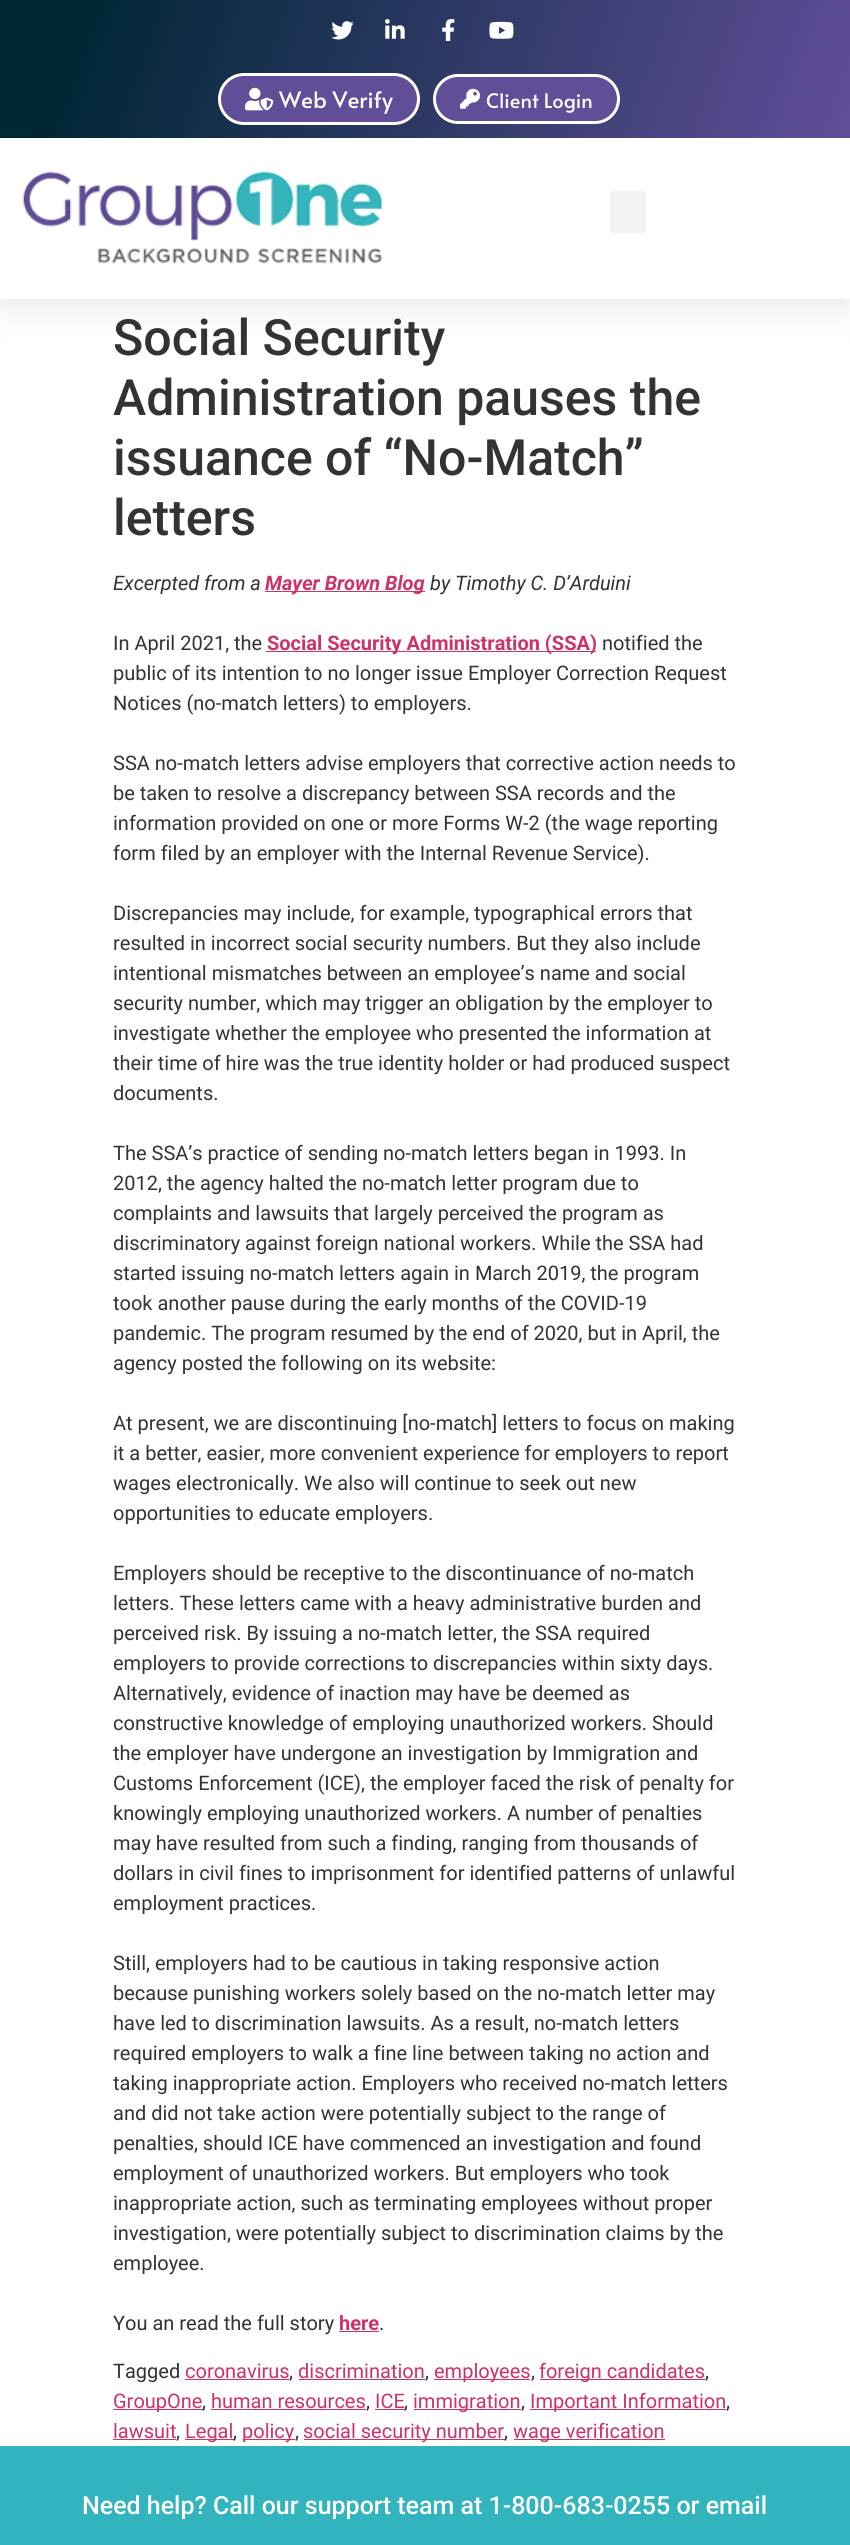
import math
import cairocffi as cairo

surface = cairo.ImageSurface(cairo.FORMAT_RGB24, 850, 2545)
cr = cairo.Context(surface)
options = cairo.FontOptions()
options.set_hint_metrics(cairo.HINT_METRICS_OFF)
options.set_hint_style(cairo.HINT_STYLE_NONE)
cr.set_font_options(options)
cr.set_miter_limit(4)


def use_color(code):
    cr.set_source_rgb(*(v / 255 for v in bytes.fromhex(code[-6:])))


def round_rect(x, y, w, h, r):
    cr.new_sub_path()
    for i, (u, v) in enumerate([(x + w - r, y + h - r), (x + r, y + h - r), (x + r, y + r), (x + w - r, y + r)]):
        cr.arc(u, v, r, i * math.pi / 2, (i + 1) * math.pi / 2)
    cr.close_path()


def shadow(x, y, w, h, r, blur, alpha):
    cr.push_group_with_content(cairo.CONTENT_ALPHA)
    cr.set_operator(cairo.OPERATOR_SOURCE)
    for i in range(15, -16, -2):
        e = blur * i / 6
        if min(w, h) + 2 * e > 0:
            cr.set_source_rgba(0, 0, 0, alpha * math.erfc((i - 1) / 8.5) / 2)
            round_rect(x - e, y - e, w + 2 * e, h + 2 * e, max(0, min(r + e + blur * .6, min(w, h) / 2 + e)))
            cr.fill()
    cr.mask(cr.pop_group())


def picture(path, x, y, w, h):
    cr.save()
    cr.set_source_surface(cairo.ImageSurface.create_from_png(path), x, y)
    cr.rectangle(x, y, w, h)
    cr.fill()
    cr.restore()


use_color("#ffffff")
cr.paint()
use_color("#000000")
shadow(0, 6, 850, 299, 0, 19, 0.1)
gradient = cairo.LinearGradient(28, -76, 822, 213)
gradient.add_color_stop_rgba(0.1, 0, 0.153, 0.212, 1)
gradient.add_color_stop_rgba(1, 0.38, 0.306, 0.6, 1)
cr.set_source(gradient)
cr.rectangle(0, 0, 850, 138)
cr.fill()
picture("img1.png", 331, 21, 23, 19)
picture("img2.png", 385, 19, 20, 20)
picture("img3.png", 442, 19, 13, 22)
picture("img4.png", 489, 21, 25, 18)
use_color("#614e99")
round_rect(219.5, 74.5, 199, 49, 24.5)
cr.fill_preserve()
use_color("#ffffff")
cr.set_line_width(3)
cr.stroke()
picture("img5.png", 245, 87, 29, 24)
cr.select_font_face("Alata")
cr.set_font_size(22.5)
cr.move_to(279, 108)
cr.show_text("Web Verify")
use_color("#614e99")
round_rect(434.5, 75.5, 184, 47, 23.5)
cr.fill_preserve()
use_color("#ffffff")
cr.stroke()
picture("img6.png", 460, 88, 20, 21)
cr.set_font_size(20)
cr.move_to(486, 108)
cr.show_text("Client Login")
cr.rectangle(0, 138, 850, 161)
cr.fill()
picture("img7.png", 22, 171, 361, 93)
use_color("#f2f2f2")
round_rect(610, 191, 36, 42, 4)
cr.fill()
cr.select_font_face("Roboto Medium")
cr.set_font_size(50)
use_color("#333333")
cr.move_to(113, 355)
cr.show_text("Social Security")
cr.move_to(113, 415)
cr.show_text("Administration pauses the")
cr.move_to(113, 475)
cr.show_text("issuance of “No-Match”")
cr.move_to(113, 535)
cr.show_text("letters")
cr.select_font_face("Roboto", cairo.FONT_SLANT_ITALIC)
cr.set_font_size(20)
cr.move_to(113, 590)
cr.show_text("Excerpted from a")
use_color("#cc3366")
cr.rectangle(265, 591, 160, 1)
cr.fill()
cr.select_font_face("Roboto", cairo.FONT_SLANT_ITALIC, cairo.FONT_WEIGHT_BOLD)
cr.move_to(265, 590)
cr.show_text("Mayer Brown Blog")
cr.select_font_face("Roboto", cairo.FONT_SLANT_ITALIC)
use_color("#333333")
cr.move_to(430, 590)
cr.show_text("by Timothy C. D’Arduini")
cr.select_font_face("Roboto")
cr.move_to(113, 650)
cr.show_text("In April 2021, the")
use_color("#cc3366")
cr.rectangle(266, 651, 330, 1)
cr.fill()
cr.select_font_face("Roboto", cairo.FONT_SLANT_NORMAL, cairo.FONT_WEIGHT_BOLD)
cr.move_to(267, 650)
cr.show_text("Social Security Administration (SSA)")
cr.select_font_face("Roboto")
use_color("#333333")
cr.move_to(602, 650)
cr.show_text("notified the")
cr.move_to(113, 680)
cr.show_text("public of its intention to no longer issue Employer Correction Request")
cr.move_to(113, 710)
cr.show_text("Notices (no-match letters) to employers.")
cr.move_to(113, 770)
cr.show_text("SSA no-match letters advise employers that corrective action needs to")
cr.move_to(113, 800)
cr.show_text("be taken to resolve a discrepancy between SSA records and the")
cr.move_to(113, 830)
cr.show_text("information provided on one or more Forms W-2 (the wage reporting")
cr.move_to(113, 860)
cr.show_text("form filed by an employer with the Internal Revenue Service).")
cr.move_to(113, 920)
cr.show_text("Discrepancies may include, for example, typographical errors that")
cr.move_to(113, 950)
cr.show_text("resulted in incorrect social security numbers. But they also include")
cr.move_to(113, 980)
cr.show_text("intentional mismatches between an employee’s name and social")
cr.move_to(113, 1010)
cr.show_text("security number, which may trigger an obligation by the employer to")
cr.move_to(113, 1040)
cr.show_text("investigate whether the employee who presented the information at")
cr.move_to(113, 1070)
cr.show_text("their time of hire was the true identity holder or had produced suspect")
cr.move_to(113, 1100)
cr.show_text("documents.")
cr.move_to(113, 1160)
cr.show_text("The SSA’s practice of sending no-match letters began in 1993. In")
cr.move_to(113, 1190)
cr.show_text("2012, the agency halted the no-match letter program due to")
cr.move_to(113, 1220)
cr.show_text("complaints and lawsuits that largely perceived the program as")
cr.move_to(113, 1250)
cr.show_text("discriminatory against foreign national workers. While the SSA had")
cr.move_to(113, 1280)
cr.show_text("started issuing no-match letters again in March 2019, the program")
cr.move_to(113, 1310)
cr.show_text("took another pause during the early months of the COVID-19")
cr.move_to(113, 1340)
cr.show_text("pandemic. The program resumed by the end of 2020, but in April, the")
cr.move_to(113, 1370)
cr.show_text("agency posted the following on its website:")
cr.move_to(113, 1430)
cr.show_text("At present, we are discontinuing [no-match] letters to focus on making")
cr.move_to(113, 1460)
cr.show_text("it a better, easier, more convenient experience for employers to report")
cr.move_to(113, 1490)
cr.show_text("wages electronically. We also will continue to seek out new")
cr.move_to(113, 1520)
cr.show_text("opportunities to educate employers.")
cr.move_to(113, 1580)
cr.show_text("Employers should be receptive to the discontinuance of no-match")
cr.move_to(113, 1610)
cr.show_text("letters. These letters came with a heavy administrative burden and")
cr.move_to(113, 1640)
cr.show_text("perceived risk. By issuing a no-match letter, the SSA required")
cr.move_to(113, 1670)
cr.show_text("employers to provide corrections to discrepancies within sixty days.")
cr.move_to(113, 1700)
cr.show_text("Alternatively, evidence of inaction may have be deemed as")
cr.move_to(113, 1730)
cr.show_text("constructive knowledge of employing unauthorized workers. Should")
cr.move_to(113, 1760)
cr.show_text("the employer have undergone an investigation by Immigration and")
cr.move_to(113, 1790)
cr.show_text("Customs Enforcement (ICE), the employer faced the risk of penalty for")
cr.move_to(113, 1820)
cr.show_text("knowingly employing unauthorized workers. A number of penalties")
cr.move_to(113, 1850)
cr.show_text("may have resulted from such a finding, ranging from thousands of")
cr.move_to(113, 1880)
cr.show_text("dollars in civil fines to imprisonment for identified patterns of unlawful")
cr.move_to(113, 1910)
cr.show_text("employment practices.")
cr.move_to(113, 1970)
cr.show_text("Still, employers had to be cautious in taking responsive action")
cr.move_to(113, 2000)
cr.show_text("because punishing workers solely based on the no-match letter may")
cr.move_to(113, 2030)
cr.show_text("have led to discrimination lawsuits. As a result, no-match letters")
cr.move_to(113, 2060)
cr.show_text("required employers to walk a fine line between taking no action and")
cr.move_to(113, 2090)
cr.show_text("taking inappropriate action. Employers who received no-match letters")
cr.move_to(113, 2120)
cr.show_text("and did not take action were potentially subject to the range of")
cr.move_to(113, 2150)
cr.show_text("penalties, should ICE have commenced an investigation and found")
cr.move_to(113, 2180)
cr.show_text("employment of unauthorized workers. But employers who took")
cr.move_to(113, 2210)
cr.show_text("inappropriate action, such as terminating employees without proper")
cr.move_to(113, 2240)
cr.show_text("investigation, were potentially subject to discrimination claims by the")
cr.move_to(113, 2270)
cr.show_text("employee.")
cr.move_to(113, 2330)
cr.show_text("You an read the full story")
cr.select_font_face("Roboto", cairo.FONT_SLANT_NORMAL, cairo.FONT_WEIGHT_BOLD)
use_color("#cc3366")
cr.move_to(339, 2330)
cr.show_text("here")
cr.rectangle(339, 2331, 40, 1)
cr.fill()
cr.select_font_face("Roboto")
use_color("#333333")
cr.move_to(379, 2330)
cr.show_text(".")
cr.move_to(113, 2378)
cr.show_text("Tagged")
use_color("#cc3366")
cr.move_to(185, 2378)
cr.show_text("coronavirus")
use_color("#333333")
cr.move_to(289, 2378)
cr.show_text(",")
use_color("#cc3366")
cr.rectangle(185, 2379, 104, 1)
cr.fill()
cr.move_to(298, 2378)
cr.show_text("discrimination")
use_color("#333333")
cr.move_to(425, 2378)
cr.show_text(",")
use_color("#cc3366")
cr.rectangle(299, 2379, 126, 1)
cr.fill()
cr.rectangle(434, 2379, 96, 1)
cr.fill()
cr.move_to(434, 2378)
cr.show_text("employees")
use_color("#333333")
cr.move_to(531, 2378)
cr.show_text(",")
use_color("#cc3366")
cr.rectangle(540, 2379, 165, 1)
cr.fill()
cr.move_to(539, 2378)
cr.show_text("foreign candidates")
use_color("#333333")
cr.move_to(705, 2378)
cr.show_text(",")
use_color("#cc3366")
cr.rectangle(113, 2409, 90, 1)
cr.fill()
cr.move_to(113, 2408)
cr.show_text("GroupOne")
use_color("#333333")
cr.move_to(202, 2408)
cr.show_text(",")
use_color("#cc3366")
cr.move_to(211, 2408)
cr.show_text("human resources")
cr.rectangle(211, 2409, 155, 1)
cr.fill()
use_color("#333333")
cr.move_to(366, 2408)
cr.show_text(",")
use_color("#cc3366")
cr.move_to(375, 2408)
cr.show_text("ICE")
cr.rectangle(375, 2409, 30, 1)
cr.fill()
use_color("#333333")
cr.move_to(404, 2408)
cr.show_text(",")
use_color("#cc3366")
cr.rectangle(414, 2409, 107, 1)
cr.fill()
cr.move_to(413, 2408)
cr.show_text("immigration")
use_color("#333333")
cr.move_to(521, 2408)
cr.show_text(",")
use_color("#cc3366")
cr.rectangle(530, 2409, 196, 1)
cr.fill()
cr.move_to(530, 2408)
cr.show_text("Important Information")
use_color("#333333")
cr.move_to(726, 2408)
cr.show_text(",")
use_color("#cc3366")
cr.move_to(113, 2438)
cr.show_text("lawsuit")
use_color("#333333")
cr.move_to(176, 2438)
cr.show_text(",")
use_color("#cc3366")
cr.rectangle(113, 2439, 63, 1)
cr.fill()
cr.rectangle(185, 2439, 49, 1)
cr.fill()
cr.move_to(185, 2438)
cr.show_text("Legal")
use_color("#333333")
cr.move_to(233, 2438)
cr.show_text(",")
use_color("#cc3366")
cr.rectangle(243, 2439, 52, 1)
cr.fill()
cr.move_to(242, 2438)
cr.show_text("policy")
use_color("#333333")
cr.move_to(295, 2438)
cr.show_text(",")
use_color("#cc3366")
cr.rectangle(304, 2439, 201, 1)
cr.fill()
cr.move_to(303, 2438)
cr.show_text("social security number")
use_color("#333333")
cr.move_to(504, 2438)
cr.show_text(",")
use_color("#cc3366")
cr.rectangle(514, 2439, 151, 1)
cr.fill()
cr.move_to(513, 2438)
cr.show_text("wage verification")
use_color("#31b4bd")
cr.rectangle(0, 2446, 850, 99)
cr.fill()
cr.select_font_face("Roboto Medium")
cr.set_font_size(25)
use_color("#ffffff")
cr.move_to(82, 2514)
cr.show_text("Need help? Call our support team at 1-800-683-0255 or email")
surface.write_to_png("result.png")
